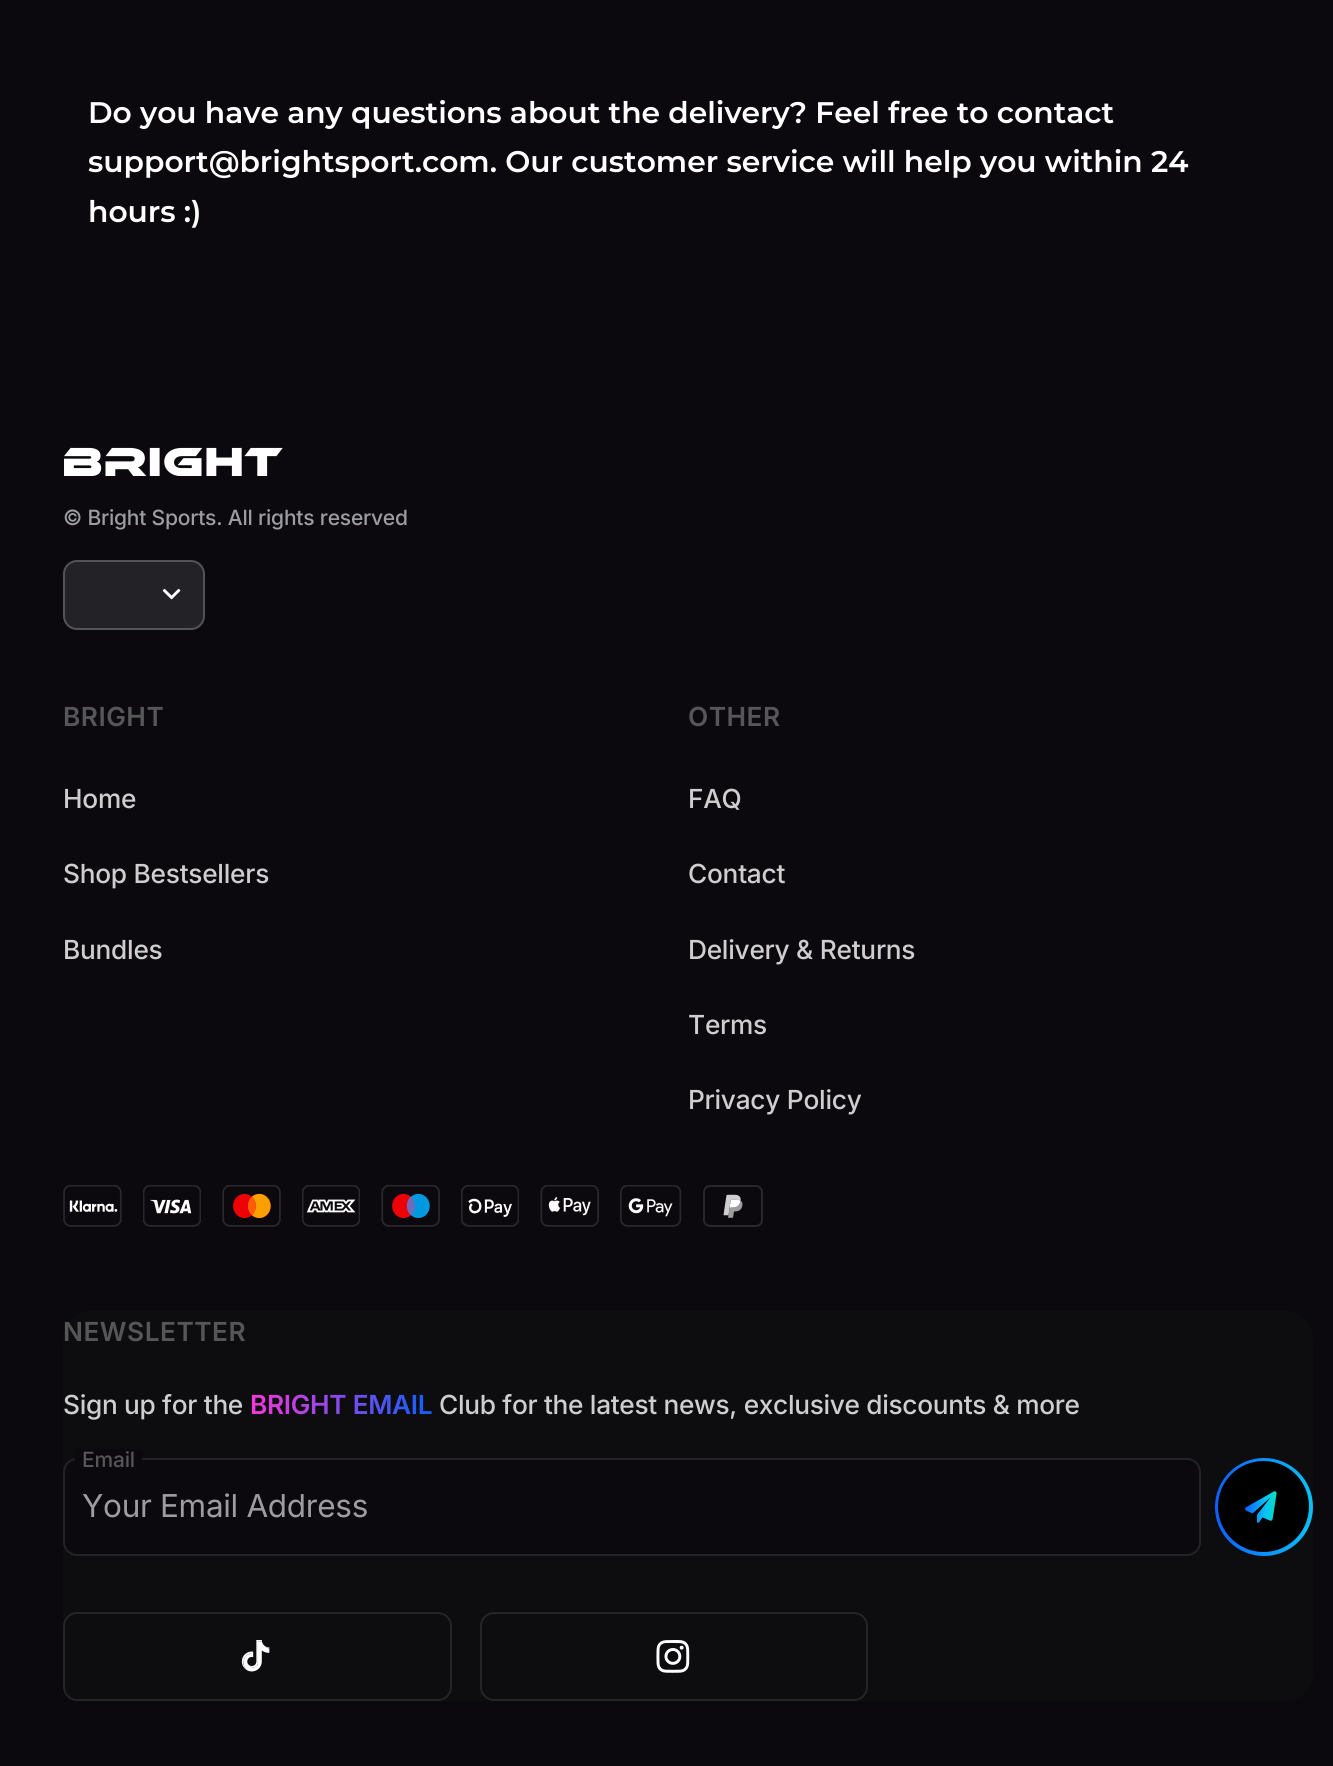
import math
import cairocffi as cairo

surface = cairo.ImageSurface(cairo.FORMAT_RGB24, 1333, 1766)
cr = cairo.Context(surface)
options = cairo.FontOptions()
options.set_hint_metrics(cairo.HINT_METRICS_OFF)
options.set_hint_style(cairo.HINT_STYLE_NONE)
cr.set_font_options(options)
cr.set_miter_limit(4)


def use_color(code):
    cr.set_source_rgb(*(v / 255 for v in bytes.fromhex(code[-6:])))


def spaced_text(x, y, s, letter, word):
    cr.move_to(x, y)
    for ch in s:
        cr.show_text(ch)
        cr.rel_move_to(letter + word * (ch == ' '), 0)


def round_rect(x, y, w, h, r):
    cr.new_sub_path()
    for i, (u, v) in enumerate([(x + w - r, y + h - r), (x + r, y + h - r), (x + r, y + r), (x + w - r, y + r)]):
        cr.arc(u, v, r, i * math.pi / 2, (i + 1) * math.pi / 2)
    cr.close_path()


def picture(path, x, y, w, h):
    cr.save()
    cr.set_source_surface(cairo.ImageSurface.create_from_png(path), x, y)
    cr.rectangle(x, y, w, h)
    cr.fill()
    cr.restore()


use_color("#0b090e")
cr.paint()
cr.select_font_face("Montserrat SemiBold")
cr.set_font_size(29.75)
use_color("#ffffff")
cr.move_to(88, 123)
cr.show_text("Do you have any questions about the delivery? Feel free to contact")
cr.move_to(88, 172)
cr.show_text("support@brightsport.com. Our customer service will help you within 24")
cr.move_to(88, 222)
cr.show_text("hours :)")
picture("img1.png", 64, 447, 219, 29)
cr.select_font_face("Inter Medium")
cr.set_font_size(21)
use_color("#9d9d9f")
spaced_text(63, 525, "© Bright Sports. All rights reserved", -0.2, 0)
use_color("#232226")
round_rect(64, 561, 140, 68, 13)
cr.fill_preserve()
use_color("#545356")
cr.stroke()
picture("img2.png", 162, 588, 19, 12)
cr.select_font_face("Inter SemiBold")
cr.set_font_size(26.25)
use_color("#565557")
spaced_text(63, 726, "BRIGHT", 0.5, 0)
cr.select_font_face("Inter Medium")
use_color("#cfcecf")
spaced_text(63, 808, "Home", -0.25, 0)
spaced_text(63, 883, "Shop Bestsellers", -0.25, 0)
spaced_text(63, 959, "Bundles", -0.25, 0)
cr.select_font_face("Inter SemiBold")
use_color("#565557")
spaced_text(688, 726, "OTHER", 0.5, 0)
cr.select_font_face("Inter Medium")
use_color("#cfcecf")
spaced_text(688, 808, "FAQ", -0.25, 0)
spaced_text(688, 883, "Contact", -0.25, 0)
spaced_text(688, 959, "Delivery & Returns", -0.25, 0)
spaced_text(688, 1034, "Terms", -0.25, 0)
spaced_text(688, 1109, "Privacy Policy", -0.25, 0)
picture("img3.png", 63, 1185, 700, 42)
use_color("#0d0c0f")
round_rect(63, 1311, 1250, 390, 28)
cr.fill()
cr.select_font_face("Inter SemiBold")
use_color("#565557")
spaced_text(63, 1341, "NEWSLETTER", 0.5, 0)
cr.select_font_face("Inter Medium")
use_color("#cfcecf")
spaced_text(63, 1414, "Sign up for the", -0.32, 0)
cr.select_font_face("Inter SemiBold")
gradient = cairo.LinearGradient(250, 1404, 432, 1404)
gradient.add_color_stop_rgba(0, 0.969, 0.216, 0.843, 1)
gradient.add_color_stop_rgba(1, 0.055, 0.376, 1, 1)
cr.set_source(gradient)
spaced_text(250, 1414, "BRIGHT EMAIL", -0.32, 0)
cr.select_font_face("Inter Medium")
use_color("#cfcecf")
spaced_text(439, 1414, "Club for the latest news, exclusive discounts & more", -0.32, 0)
use_color("#0b090e")
round_rect(64, 1459, 1136, 96, 13)
cr.fill_preserve()
use_color("#232226")
cr.stroke()
use_color("#0b090e")
cr.rectangle(75, 1449, 67, 12)
cr.fill()
cr.set_font_size(21)
use_color("#565557")
spaced_text(82, 1467, "Email", -0.2, 0)
cr.select_font_face("Inter")
cr.set_font_size(31.5)
use_color("#9d9d9f")
spaced_text(82, 1517, "Your Email Address", -0.32, 0)
gradient = cairo.LinearGradient(1215, 1507, 1313, 1507)
gradient.add_color_stop_rgba(0, 0.055, 0.376, 1, 1)
gradient.add_color_stop_rgba(1, 0.027, 0.761, 0.969, 1)
cr.set_source(gradient)
cr.new_path()
cr.arc(1264, 1507, 49, 0, 2 * math.pi)
cr.fill()
use_color("#000000")
cr.arc(1263.5, 1506.5, 45.5, 0, 2 * math.pi)
cr.fill()
picture("img4.png", 1245, 1491, 32, 32)
use_color("#0d0c0f")
round_rect(64, 1613, 387, 87, 13)
cr.fill_preserve()
use_color("#252427")
cr.stroke()
picture("img5.png", 241, 1640, 29, 32)
round_rect(481, 1613, 386, 87, 13)
cr.stroke()
picture("img6.png", 656, 1640, 34, 33)
surface.write_to_png("result.png")
